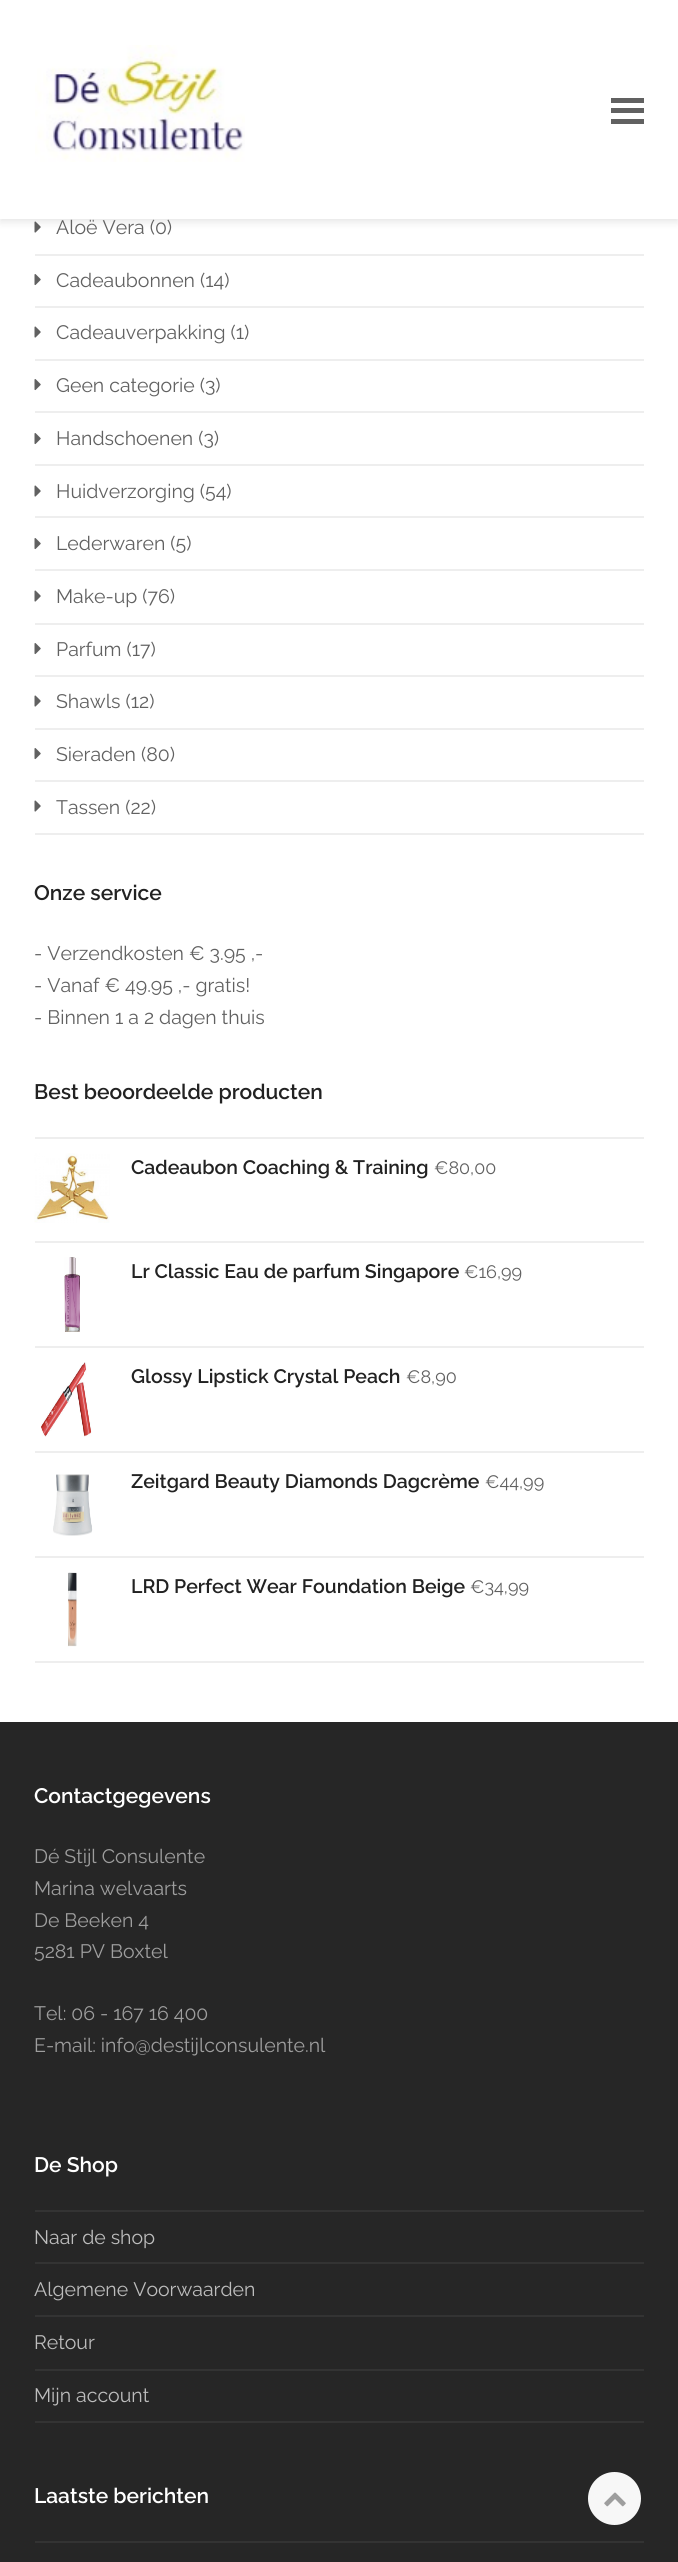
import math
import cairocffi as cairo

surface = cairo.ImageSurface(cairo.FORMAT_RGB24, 678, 2562)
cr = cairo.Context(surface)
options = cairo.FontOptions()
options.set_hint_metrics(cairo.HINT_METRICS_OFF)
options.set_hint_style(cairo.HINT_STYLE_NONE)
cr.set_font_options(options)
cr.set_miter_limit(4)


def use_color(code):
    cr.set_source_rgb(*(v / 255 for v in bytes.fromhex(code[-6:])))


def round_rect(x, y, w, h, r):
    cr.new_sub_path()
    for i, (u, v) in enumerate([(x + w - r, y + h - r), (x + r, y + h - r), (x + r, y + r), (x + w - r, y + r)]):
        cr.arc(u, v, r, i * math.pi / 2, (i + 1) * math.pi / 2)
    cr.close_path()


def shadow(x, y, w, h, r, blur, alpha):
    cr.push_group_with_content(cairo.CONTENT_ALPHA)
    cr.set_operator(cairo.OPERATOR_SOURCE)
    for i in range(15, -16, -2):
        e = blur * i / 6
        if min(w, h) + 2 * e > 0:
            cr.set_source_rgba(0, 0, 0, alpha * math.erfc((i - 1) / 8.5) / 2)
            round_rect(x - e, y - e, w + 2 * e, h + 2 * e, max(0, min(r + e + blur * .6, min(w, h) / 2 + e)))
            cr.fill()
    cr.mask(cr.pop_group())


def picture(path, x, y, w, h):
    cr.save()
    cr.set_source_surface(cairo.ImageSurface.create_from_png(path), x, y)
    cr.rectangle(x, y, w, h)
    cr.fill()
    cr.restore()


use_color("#ffffff")
cr.paint()
picture("img2.png", 34, 221, 7, 12)
use_color("#000000")
shadow(0, 3, 678, 219, 0, 4, 0.1)
use_color("#ffffff")
cr.rectangle(0, 0, 678, 219)
cr.fill()
picture("img1.png", 35, 45, 210, 117)
use_color("#616161")
cr.rectangle(611, 108, 33, 5)
cr.fill()
cr.rectangle(611, 98, 33, 5)
cr.fill()
cr.rectangle(611, 119, 33, 5)
cr.fill()
use_color("#eeeeee")
cr.rectangle(35, 254, 609, 2)
cr.fill()
cr.select_font_face("Raleway")
cr.set_font_size(19.5)
use_color("#616161")
cr.move_to(56, 234)
cr.show_text("Aloë Vera (0)")
use_color("#eeeeee")
cr.rectangle(35, 306, 609, 2)
cr.fill()
picture("img3.png", 34, 274, 7, 12)
use_color("#616161")
cr.move_to(56, 287)
cr.show_text("Cadeaubonnen (14)")
use_color("#eeeeee")
cr.rectangle(35, 359, 609, 2)
cr.fill()
picture("img2.png", 34, 326, 7, 12)
use_color("#616161")
cr.move_to(56, 339)
cr.show_text("Cadeauverpakking (1)")
use_color("#eeeeee")
cr.rectangle(35, 411, 609, 2)
cr.fill()
picture("img3.png", 34, 379, 7, 12)
use_color("#616161")
cr.move_to(56, 392)
cr.show_text("Geen categorie (3)")
use_color("#eeeeee")
cr.rectangle(35, 464, 609, 2)
cr.fill()
picture("img3.png", 34, 433, 7, 12)
use_color("#616161")
cr.move_to(56, 445)
cr.show_text("Handschoenen (3)")
use_color("#eeeeee")
cr.rectangle(35, 516, 609, 2)
cr.fill()
picture("img2.png", 34, 485, 7, 12)
use_color("#616161")
cr.move_to(56, 498)
cr.show_text("Huidverzorging (54)")
use_color("#eeeeee")
cr.rectangle(35, 569, 609, 2)
cr.fill()
picture("img3.png", 34, 538, 7, 12)
use_color("#616161")
cr.move_to(56, 550)
cr.show_text("Lederwaren (5)")
use_color("#eeeeee")
cr.rectangle(35, 623, 609, 2)
cr.fill()
picture("img2.png", 34, 590, 7, 12)
use_color("#616161")
cr.move_to(56, 603)
cr.show_text("Make-up (76)")
use_color("#eeeeee")
cr.rectangle(35, 675, 609, 2)
cr.fill()
picture("img3.png", 34, 643, 7, 12)
use_color("#616161")
cr.move_to(56, 656)
cr.show_text("Parfum (17)")
use_color("#eeeeee")
cr.rectangle(35, 728, 609, 2)
cr.fill()
picture("img2.png", 34, 695, 7, 12)
use_color("#616161")
cr.move_to(56, 708)
cr.show_text("Shawls (12)")
use_color("#eeeeee")
cr.rectangle(35, 780, 609, 2)
cr.fill()
picture("img3.png", 34, 748, 7, 12)
use_color("#616161")
cr.move_to(56, 761)
cr.show_text("Sieraden (80)")
use_color("#eeeeee")
cr.rectangle(35, 833, 609, 2)
cr.fill()
picture("img2.png", 34, 800, 7, 12)
use_color("#616161")
cr.move_to(56, 814)
cr.show_text("Tassen (22)")
cr.select_font_face("Raleway SemiBold")
cr.set_font_size(21)
use_color("#222222")
cr.move_to(34, 900)
cr.show_text("Onze service")
cr.select_font_face("Raleway")
cr.set_font_size(19.5)
use_color("#616161")
cr.move_to(34, 960)
cr.show_text("- Verzendkosten € 3.95 ,-")
cr.move_to(34, 992)
cr.show_text("- Vanaf € 49.95 ,- gratis!")
cr.move_to(34, 1024)
cr.show_text("- Binnen 1 a 2 dagen thuis")
cr.select_font_face("Raleway SemiBold")
cr.set_font_size(21)
use_color("#222222")
cr.move_to(34, 1099)
cr.show_text("Best beoordeelde producten")
use_color("#eeeeee")
cr.rectangle(35, 1137, 609, 2)
cr.fill()
cr.rectangle(35, 1241, 609, 2)
cr.fill()
picture("img4.png", 34, 1153, 76, 70)
cr.set_font_size(19.5)
use_color("#222222")
cr.move_to(131, 1174)
cr.show_text("Cadeaubon Coaching & Training")
cr.select_font_face("Raleway")
cr.set_font_size(18)
use_color("#616161")
cr.move_to(434, 1174)
cr.show_text("€80,00")
use_color("#eeeeee")
cr.rectangle(35, 1346, 609, 2)
cr.fill()
picture("img5.png", 64, 1257, 16, 75)
cr.select_font_face("Raleway SemiBold")
cr.set_font_size(19.5)
use_color("#222222")
cr.move_to(131, 1278)
cr.show_text("Lr Classic Eau de parfum Singapore")
cr.select_font_face("Raleway")
cr.set_font_size(18)
use_color("#616161")
cr.move_to(464, 1278)
cr.show_text("€16,99")
use_color("#eeeeee")
cr.rectangle(35, 1451, 609, 2)
cr.fill()
picture("img6.png", 41, 1362, 51, 75)
cr.select_font_face("Raleway SemiBold")
cr.set_font_size(19.5)
use_color("#222222")
cr.move_to(131, 1383)
cr.show_text("Glossy Lipstick Crystal Peach")
cr.select_font_face("Raleway")
cr.set_font_size(18)
use_color("#616161")
cr.move_to(406, 1383)
cr.show_text("€8,90")
use_color("#eeeeee")
cr.rectangle(35, 1556, 609, 2)
cr.fill()
picture("img7.png", 53, 1474, 40, 62)
cr.select_font_face("Raleway SemiBold")
cr.set_font_size(19.5)
use_color("#222222")
cr.move_to(131, 1488)
cr.show_text("Zeitgard Beauty Diamonds Dagcrème")
cr.select_font_face("Raleway")
cr.set_font_size(18)
use_color("#616161")
cr.move_to(485, 1488)
cr.show_text("€44,99")
use_color("#eeeeee")
cr.rectangle(35, 1661, 609, 2)
cr.fill()
picture("img8.png", 68, 1572, 9, 75)
cr.select_font_face("Raleway SemiBold")
cr.set_font_size(19.5)
use_color("#222222")
cr.move_to(131, 1593)
cr.show_text("LRD Perfect Wear Foundation Beige")
cr.select_font_face("Raleway")
cr.set_font_size(18)
use_color("#616161")
cr.move_to(470, 1593)
cr.show_text("€34,99")
use_color("#262626")
cr.rectangle(0, 1722, 678, 840)
cr.fill()
cr.select_font_face("Raleway SemiBold")
cr.set_font_size(21)
use_color("#ffffff")
cr.move_to(34, 1803)
cr.show_text("Contactgegevens")
cr.select_font_face("Raleway")
cr.set_font_size(19.5)
use_color("#9e9e9e")
cr.move_to(34, 1863)
cr.show_text("Dé Stijl Consulente")
cr.move_to(34, 1895)
cr.show_text("Marina welvaarts")
cr.move_to(34, 1927)
cr.show_text("De Beeken 4")
cr.move_to(34, 1958)
cr.show_text("5281 PV Boxtel")
cr.move_to(34, 2020)
cr.show_text("Tel: 06 - 167 16 400")
cr.move_to(34, 2052)
cr.show_text("E-mail: info@destijlconsulente.nl")
cr.select_font_face("Raleway SemiBold")
cr.set_font_size(21)
use_color("#ffffff")
cr.move_to(34, 2172)
cr.show_text("De Shop")
use_color("#333333")
cr.rectangle(35, 2210, 609, 2)
cr.fill()
cr.rectangle(35, 2262, 609, 2)
cr.fill()
cr.select_font_face("Raleway")
cr.set_font_size(19.5)
use_color("#bdbdbd")
cr.move_to(34, 2244)
cr.show_text("Naar de shop")
use_color("#333333")
cr.rectangle(35, 2315, 609, 2)
cr.fill()
use_color("#bdbdbd")
cr.move_to(34, 2296)
cr.show_text("Algemene Voorwaarden")
use_color("#333333")
cr.rectangle(35, 2369, 609, 2)
cr.fill()
use_color("#bdbdbd")
cr.move_to(34, 2349)
cr.show_text("Retour")
use_color("#333333")
cr.rectangle(35, 2421, 609, 2)
cr.fill()
use_color("#bdbdbd")
cr.move_to(34, 2402)
cr.show_text("Mijn account")
cr.select_font_face("Raleway SemiBold")
cr.set_font_size(21)
use_color("#ffffff")
cr.move_to(34, 2503)
cr.show_text("Laatste berichten")
use_color("#333333")
cr.rectangle(35, 2541, 609, 2)
cr.fill()
use_color("#f7f7f7")
cr.arc(614.5, 2498.5, 26.5, 0, 2 * math.pi)
cr.fill()
picture("img9.png", 604, 2492, 22, 15)
surface.write_to_png("result.png")
